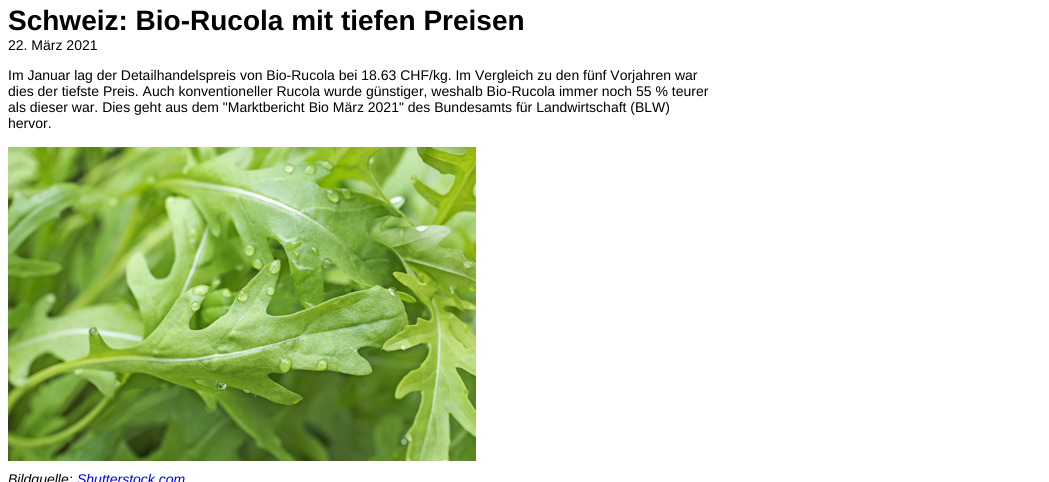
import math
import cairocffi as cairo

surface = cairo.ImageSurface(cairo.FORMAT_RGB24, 1049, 482)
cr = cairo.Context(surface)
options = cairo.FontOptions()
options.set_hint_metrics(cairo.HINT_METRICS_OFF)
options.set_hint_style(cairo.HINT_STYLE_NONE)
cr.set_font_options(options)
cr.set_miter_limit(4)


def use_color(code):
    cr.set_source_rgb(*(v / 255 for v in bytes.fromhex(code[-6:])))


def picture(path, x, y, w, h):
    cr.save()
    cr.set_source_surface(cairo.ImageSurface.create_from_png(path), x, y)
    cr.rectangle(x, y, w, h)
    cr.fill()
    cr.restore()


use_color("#ffffff")
cr.paint()
cr.select_font_face("Liberation Sans", cairo.FONT_SLANT_NORMAL, cairo.FONT_WEIGHT_BOLD)
cr.set_font_size(28)
use_color("#000000")
cr.move_to(8, 30)
cr.show_text("Schweiz: Bio-Rucola mit tiefen Preisen")
cr.select_font_face("Liberation Sans")
cr.set_font_size(14)
cr.move_to(8, 50)
cr.show_text("22. März 2021")
cr.move_to(8, 80)
cr.show_text("Im Januar lag der Detailhandelspreis von Bio-Rucola bei 18.63 CHF/kg. Im Vergleich zu den fünf Vorjahren war")
cr.move_to(8, 96)
cr.show_text("dies der tiefste Preis. Auch konventioneller Rucola wurde günstiger, weshalb Bio-Rucola immer noch 55 % teurer")
cr.move_to(8, 112)
cr.show_text("als dieser war. Dies geht aus dem \"Marktbericht Bio März 2021\" des Bundesamts für Landwirtschaft (BLW)")
cr.move_to(8, 128)
cr.show_text("hervor.")
picture("img1.png", 8, 147, 468, 314)
cr.select_font_face("Liberation Sans", cairo.FONT_SLANT_ITALIC)
cr.move_to(8, 484)
cr.show_text("Bildquelle:")
use_color("#0000ee")
cr.move_to(77, 484)
cr.show_text("Shutterstock.com")
surface.write_to_png("result.png")
